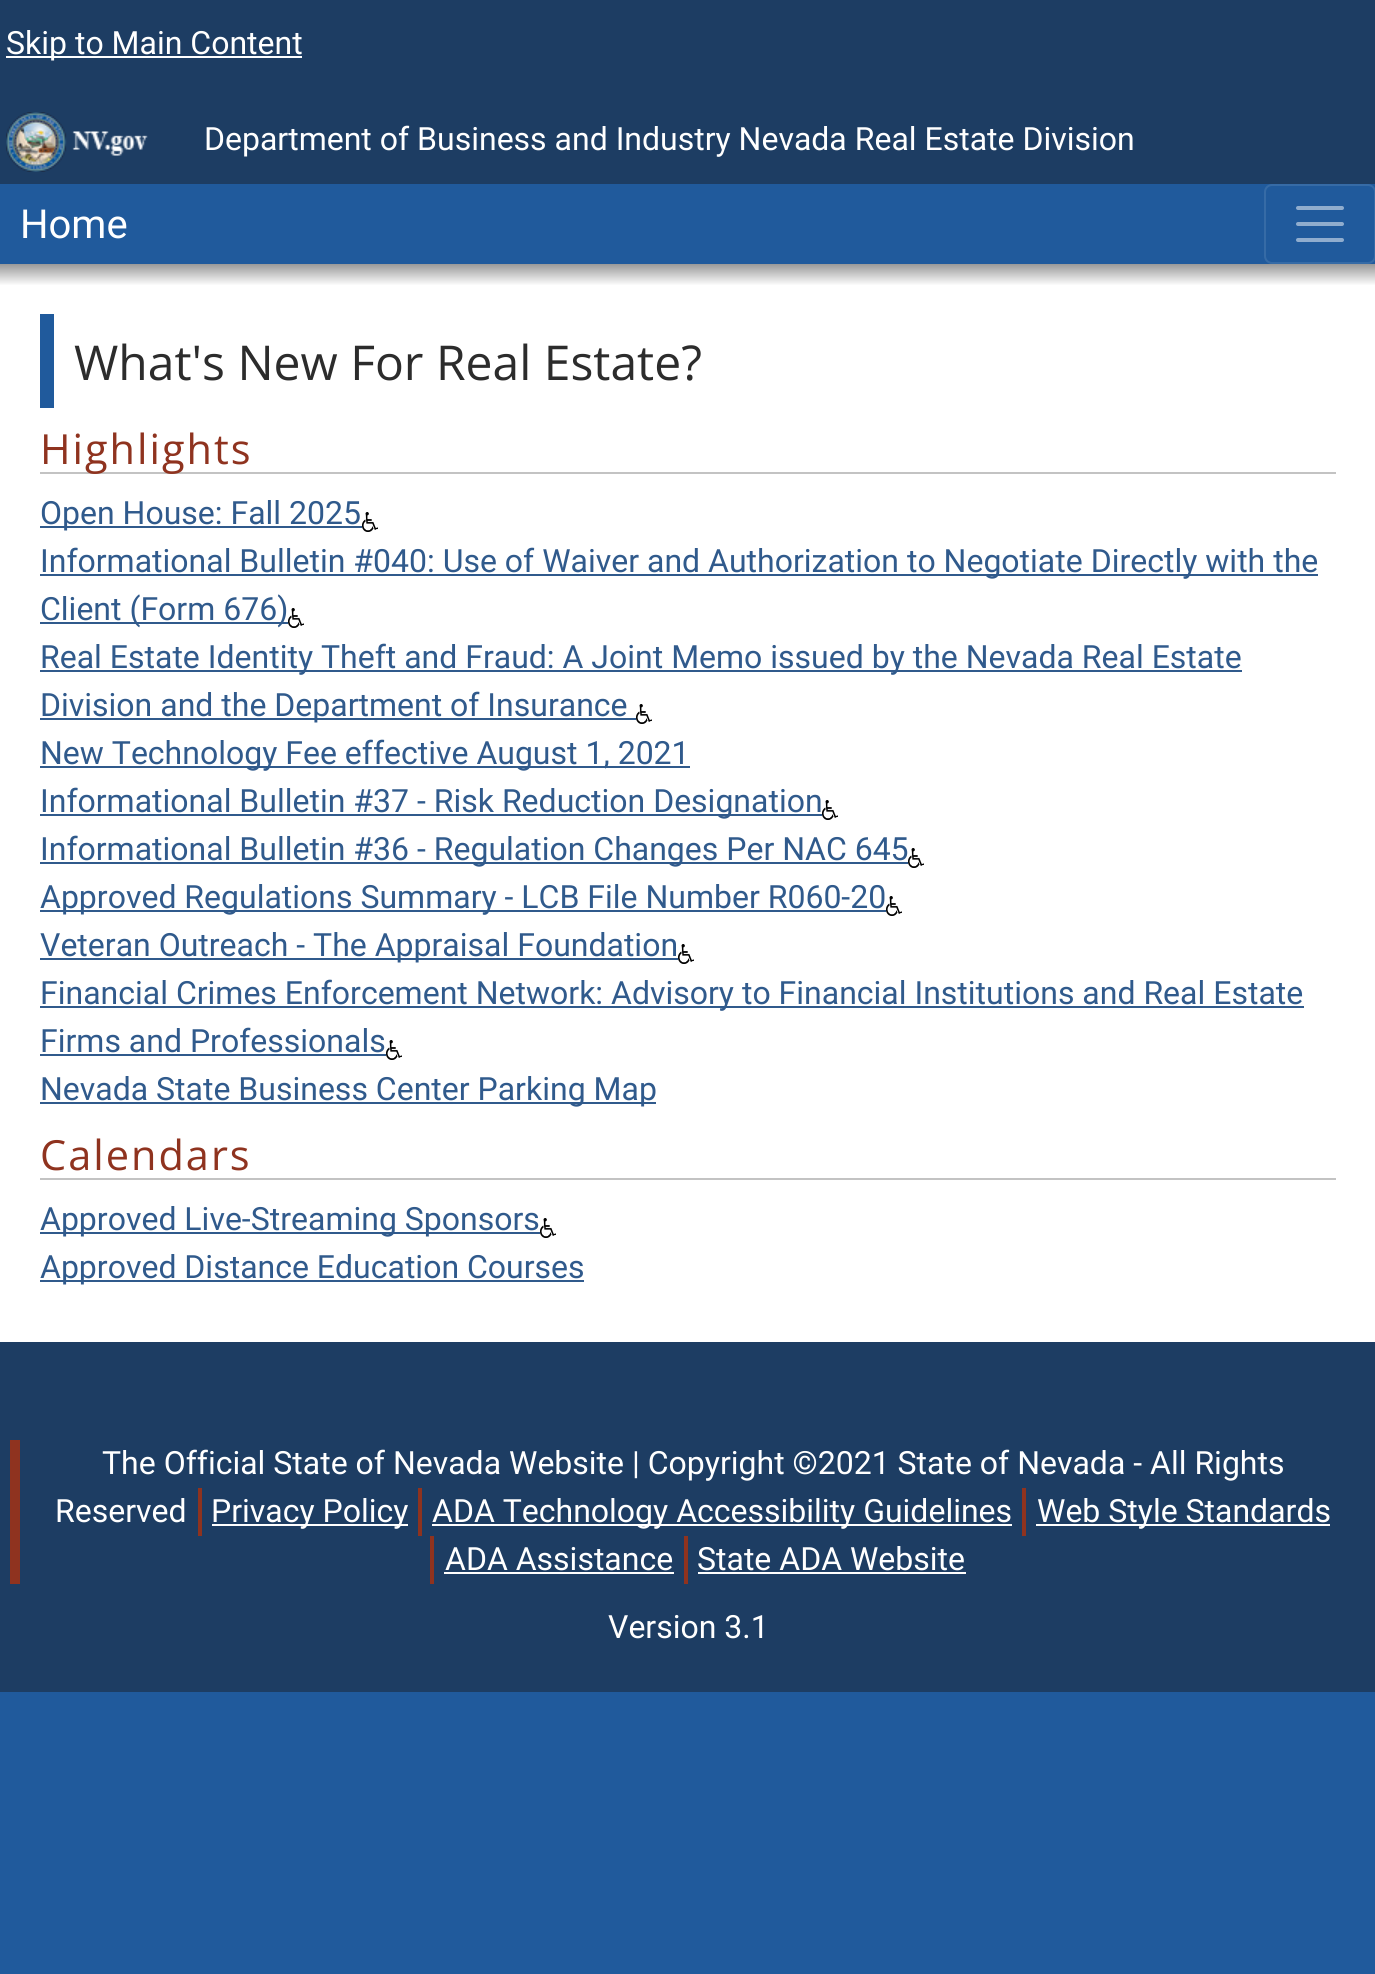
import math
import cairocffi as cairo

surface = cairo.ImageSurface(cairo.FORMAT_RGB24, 1375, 1974)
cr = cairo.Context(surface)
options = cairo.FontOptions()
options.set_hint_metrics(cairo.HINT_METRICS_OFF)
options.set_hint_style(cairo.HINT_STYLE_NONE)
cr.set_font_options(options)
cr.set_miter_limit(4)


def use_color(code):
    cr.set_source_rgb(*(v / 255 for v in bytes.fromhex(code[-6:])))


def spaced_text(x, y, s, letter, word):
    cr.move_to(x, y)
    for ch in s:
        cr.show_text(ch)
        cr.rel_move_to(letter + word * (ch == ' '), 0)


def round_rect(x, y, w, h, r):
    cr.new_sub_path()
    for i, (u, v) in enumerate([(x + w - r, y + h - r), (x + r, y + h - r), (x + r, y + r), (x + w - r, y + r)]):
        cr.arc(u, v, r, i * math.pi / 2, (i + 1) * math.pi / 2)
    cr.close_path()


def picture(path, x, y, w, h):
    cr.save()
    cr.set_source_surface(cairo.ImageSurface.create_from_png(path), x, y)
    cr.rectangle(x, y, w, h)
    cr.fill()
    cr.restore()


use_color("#ffffff")
cr.paint()
gradient = cairo.LinearGradient(688, 0, 688, 1974)
gradient.add_color_stop_rgba(0, 0.114, 0.239, 0.388, 1)
gradient.add_color_stop_rgba(0.2, 0.114, 0.239, 0.388, 1)
gradient.add_color_stop_rgba(0.4, 0.125, 0.353, 0.612, 1)
cr.set_source(gradient)
cr.rectangle(0, 0, 1375, 1974)
cr.fill()
use_color("#ffffff")
cr.rectangle(6, 56, 296, 2)
cr.fill()
cr.select_font_face("Roboto")
cr.set_font_size(32)
cr.move_to(6, 54)
cr.show_text("Skip to Main Content")
picture("img1.png", 6, 112, 142, 60)
cr.move_to(204, 150)
cr.show_text("Department of Business and Industry Nevada Real Estate Division")
use_color("#205a9c")
cr.rectangle(0, 184, 1375, 80)
cr.fill()
cr.set_font_size(40)
use_color("#ffffff")
cr.move_to(20, 238)
cr.show_text("Home")
round_rect(1265, 185, 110, 78, 7)
use_color("#366ba6")
cr.stroke()
cr.new_path()
cr.move_to(1298, 208)
cr.line_to(1342, 208)
cr.move_to(1298, 224)
cr.line_to(1342, 224)
cr.move_to(1298, 240)
cr.line_to(1342, 240)
use_color("#90adce")
cr.set_line_width(4)
cr.set_line_cap(cairo.LINE_CAP_ROUND)
cr.stroke()
gradient = cairo.LinearGradient(688, 264, 688, 1342)
gradient.add_color_stop_rgba(0, 0.6, 0.6, 0.6, 1)
gradient.add_color_stop_rgba(0.02, 1, 1, 1, 1)
gradient.add_color_stop_rgba(1, 1, 1, 1, 1)
cr.set_source(gradient)
cr.rectangle(0, 264, 1375, 1078)
cr.fill()
use_color("#205a9c")
cr.rectangle(40, 314, 14, 94)
cr.fill()
cr.select_font_face("Open Sans")
cr.set_font_size(48)
use_color("#2c2c2c")
cr.move_to(74, 380)
cr.show_text("What's New For Real Estate?")
use_color("#c3c3c3")
cr.rectangle(40, 472, 1296, 2)
cr.fill()
cr.set_font_size(41.5)
use_color("#8f331f")
spaced_text(40, 464, "Highlights", 2, 0)
use_color("#305a8c")
cr.rectangle(40, 526, 322, 2)
cr.fill()
cr.select_font_face("Roboto")
cr.set_font_size(32)
cr.move_to(40, 524)
cr.show_text("Open House: Fall 2025")
picture("img2.png", 362, 512, 16, 20)
cr.rectangle(40, 574, 1278, 2)
cr.fill()
cr.move_to(40, 572)
cr.show_text("Informational Bulletin #040: Use of Waiver and Authorization to Negotiate Directly with the")
cr.rectangle(40, 622, 248, 2)
cr.fill()
cr.move_to(40, 620)
cr.show_text("Client (Form 676)")
picture("img2.png", 288, 608, 16, 20)
cr.rectangle(40, 670, 1202, 2)
cr.fill()
cr.move_to(40, 668)
cr.show_text("Real Estate Identity Theft and Fraud: A Joint Memo issued by the Nevada Real Estate")
cr.rectangle(40, 718, 596, 2)
cr.fill()
cr.move_to(40, 716)
cr.show_text("Division and the Department of Insurance")
picture("img2.png", 636, 704, 16, 20)
cr.rectangle(40, 766, 650, 2)
cr.fill()
cr.move_to(40, 764)
cr.show_text("New Technology Fee effective August 1, 2021")
cr.rectangle(40, 814, 782, 2)
cr.fill()
cr.move_to(40, 812)
cr.show_text("Informational Bulletin #37 - Risk Reduction Designation")
picture("img2.png", 822, 800, 16, 20)
cr.rectangle(40, 862, 868, 2)
cr.fill()
cr.move_to(40, 860)
cr.show_text("Informational Bulletin #36 - Regulation Changes Per NAC 645")
picture("img2.png", 908, 848, 16, 20)
cr.rectangle(40, 910, 846, 2)
cr.fill()
cr.move_to(40, 908)
cr.show_text("Approved Regulations Summary - LCB File Number R060-20")
picture("img3.png", 886, 896, 16, 20)
cr.rectangle(40, 958, 638, 2)
cr.fill()
cr.move_to(40, 956)
cr.show_text("Veteran Outreach - The Appraisal Foundation")
picture("img2.png", 678, 944, 16, 20)
cr.rectangle(40, 1006, 1264, 2)
cr.fill()
cr.move_to(40, 1004)
cr.show_text("Financial Crimes Enforcement Network: Advisory to Financial Institutions and Real Estate")
cr.move_to(40, 1052)
cr.show_text("Firms and Professionals")
cr.rectangle(40, 1054, 346, 2)
cr.fill()
picture("img2.png", 386, 1040, 16, 20)
cr.rectangle(40, 1102, 616, 2)
cr.fill()
cr.move_to(40, 1100)
cr.show_text("Nevada State Business Center Parking Map")
use_color("#c3c3c3")
cr.rectangle(40, 1178, 1296, 2)
cr.fill()
cr.select_font_face("Open Sans")
cr.set_font_size(41.5)
use_color("#8f331f")
spaced_text(40, 1170, "Calendars", 2, 0)
use_color("#305a8c")
cr.rectangle(40, 1232, 500, 2)
cr.fill()
cr.select_font_face("Roboto")
cr.set_font_size(32)
cr.move_to(40, 1230)
cr.show_text("Approved Live-Streaming Sponsors")
picture("img2.png", 540, 1218, 16, 20)
cr.rectangle(40, 1280, 544, 2)
cr.fill()
cr.move_to(40, 1278)
cr.show_text("Approved Distance Education Courses")
use_color("#1d3d63")
cr.rectangle(0, 1342, 1375, 350)
cr.fill()
use_color("#8f331f")
cr.rectangle(10, 1440, 10, 144)
cr.fill()
use_color("#ffffff")
cr.move_to(102, 1474)
cr.show_text("The Official State of Nevada Website | Copyright ©2021 State of Nevada - All Rights")
cr.move_to(55, 1522)
cr.show_text("Reserved")
use_color("#8f331f")
cr.rectangle(198, 1488, 4, 48)
cr.fill()
use_color("#ffffff")
cr.rectangle(212, 1524, 196, 2)
cr.fill()
cr.move_to(211, 1522)
cr.show_text("Privacy Policy")
use_color("#8f331f")
cr.rectangle(418, 1488, 4, 48)
cr.fill()
use_color("#ffffff")
cr.rectangle(432, 1524, 580, 2)
cr.fill()
cr.move_to(432, 1522)
cr.show_text("ADA Technology Accessibility Guidelines")
use_color("#8f331f")
cr.rectangle(1022, 1488, 4, 48)
cr.fill()
use_color("#ffffff")
cr.rectangle(1036, 1524, 294, 2)
cr.fill()
cr.move_to(1037, 1522)
cr.show_text("Web Style Standards")
use_color("#8f331f")
cr.rectangle(430, 1536, 4, 48)
cr.fill()
use_color("#ffffff")
cr.move_to(445, 1570)
cr.show_text("ADA Assistance")
cr.rectangle(444, 1572, 230, 2)
cr.fill()
use_color("#8f331f")
cr.rectangle(684, 1536, 4, 48)
cr.fill()
use_color("#ffffff")
cr.move_to(697, 1570)
cr.show_text("State ADA Website")
cr.rectangle(698, 1572, 268, 2)
cr.fill()
cr.move_to(608, 1638)
cr.show_text("Version 3.1")
surface.write_to_png("result.png")
